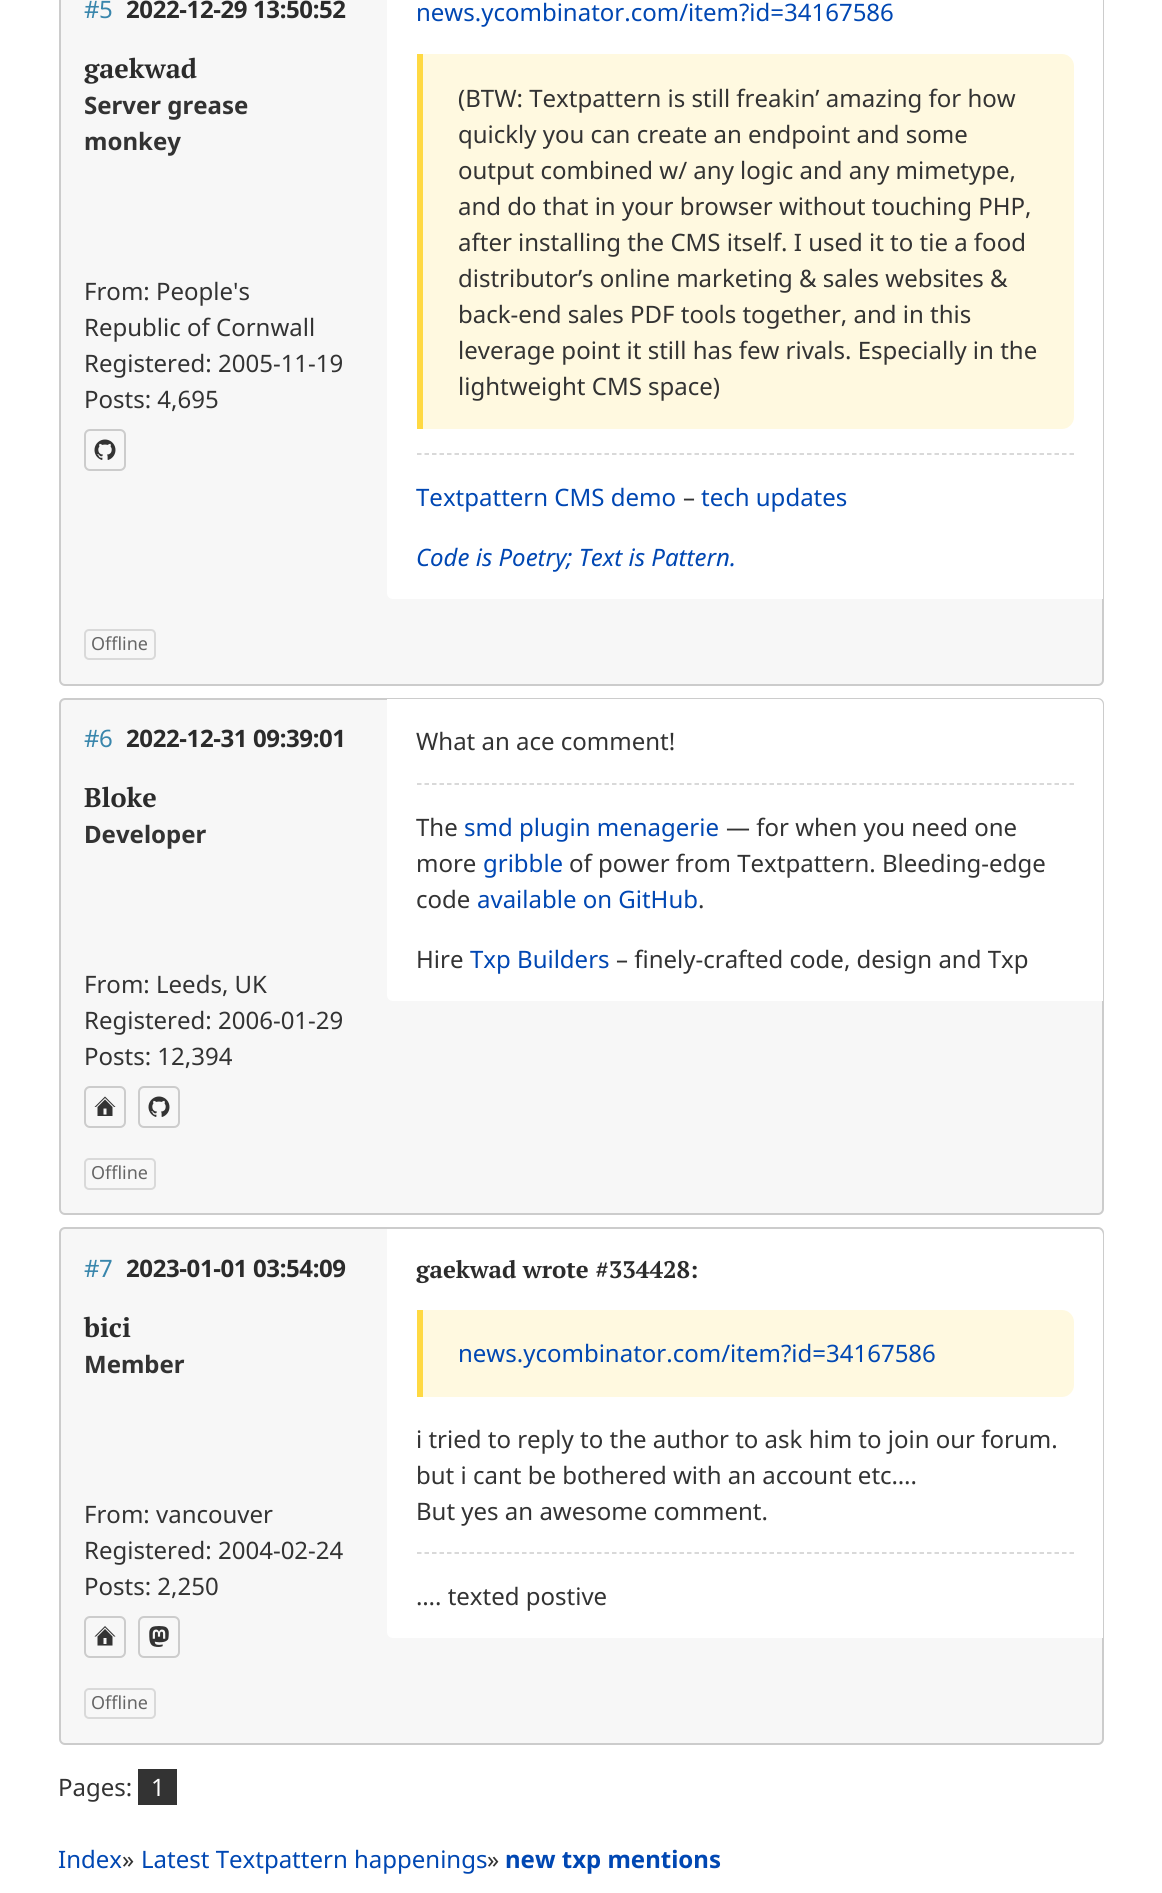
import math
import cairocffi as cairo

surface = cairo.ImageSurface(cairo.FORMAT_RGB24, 1162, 1893)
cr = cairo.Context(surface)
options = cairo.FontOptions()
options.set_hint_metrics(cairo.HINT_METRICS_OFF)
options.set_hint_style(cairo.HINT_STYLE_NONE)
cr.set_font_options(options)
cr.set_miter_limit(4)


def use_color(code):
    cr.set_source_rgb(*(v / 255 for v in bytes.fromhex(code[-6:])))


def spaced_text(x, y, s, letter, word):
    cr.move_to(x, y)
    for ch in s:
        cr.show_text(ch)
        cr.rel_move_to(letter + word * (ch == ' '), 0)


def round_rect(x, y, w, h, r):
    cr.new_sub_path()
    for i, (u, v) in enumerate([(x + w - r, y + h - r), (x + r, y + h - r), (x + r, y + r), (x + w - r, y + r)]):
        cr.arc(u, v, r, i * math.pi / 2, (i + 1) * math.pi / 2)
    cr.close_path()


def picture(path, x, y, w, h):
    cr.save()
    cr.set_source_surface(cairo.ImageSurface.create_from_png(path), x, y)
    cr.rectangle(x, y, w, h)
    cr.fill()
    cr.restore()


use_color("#ffffff")
cr.paint()
use_color("#f7f7f7")
round_rect(60, -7, 1043, 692, 5)
cr.fill_preserve()
use_color("#cccccc")
cr.stroke()
cr.select_font_face("Noto Sans")
cr.set_font_size(24)
use_color("#3986ac")
spaced_text(84, 18, "#5", -0.4, 0)
cr.select_font_face("Noto Sans", cairo.FONT_SLANT_NORMAL, cairo.FONT_WEIGHT_BOLD)
use_color("#2b2b2b")
spaced_text(126, 18, "2022-12-29 13:50:52", -0.4, 0)
cr.select_font_face("PT Serif", cairo.FONT_SLANT_NORMAL, cairo.FONT_WEIGHT_BOLD)
cr.set_font_size(27)
cr.move_to(84, 78)
cr.show_text("gaekwad")
cr.select_font_face("Noto Sans", cairo.FONT_SLANT_NORMAL, cairo.FONT_WEIGHT_BOLD)
cr.set_font_size(24)
use_color("#333333")
cr.move_to(84, 114)
cr.show_text("Server grease")
cr.move_to(84, 150)
cr.show_text("monkey")
cr.select_font_face("Noto Sans")
cr.move_to(84, 300)
cr.show_text("From: People's")
cr.move_to(84, 336)
cr.show_text("Republic of Cornwall")
cr.move_to(84, 372)
cr.show_text("Registered: 2005-11-19")
cr.move_to(84, 408)
cr.show_text("Posts: 4,695")
round_rect(85, 430, 40, 40, 5)
use_color("#cccccc")
cr.stroke()
picture("img1.png", 94, 439, 22, 21)
use_color("#ffffff")
cr.new_path()
cr.move_to(387, -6)
cr.line_to(1097, -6)
cr.curve_to(1100.5, -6, 1103, -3.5, 1103, 0)
cr.line_to(1103, 599)
cr.line_to(393, 599)
cr.curve_to(389.5, 599, 387, 596.5, 387, 593)
cr.close_path()
cr.fill()
use_color("#0047b3")
cr.move_to(416, 21)
cr.show_text("news.ycombinator.com/item?id=34167586")
use_color("#fff9e0")
cr.new_path()
cr.move_to(417, 54)
cr.line_to(1062, 54)
cr.curve_to(1068.5, 54, 1074, 59.5, 1074, 66)
cr.line_to(1074, 417)
cr.curve_to(1074, 423.5, 1068.5, 429, 1062, 429)
cr.line_to(417, 429)
cr.close_path()
cr.fill()
use_color("#ffd942")
cr.rectangle(417, 54, 6, 375)
cr.fill()
use_color("#333333")
cr.move_to(458, 107)
cr.show_text("(BTW: Textpattern is still freakin’ amazing for how")
cr.move_to(458, 143)
cr.show_text("quickly you can create an endpoint and some")
cr.move_to(458, 179)
cr.show_text("output combined w/ any logic and any mimetype,")
cr.move_to(458, 215)
cr.show_text("and do that in your browser without touching PHP,")
cr.move_to(458, 251)
cr.show_text("after installing the CMS itself. I used it to tie a food")
cr.move_to(458, 287)
cr.show_text("distributor’s online marketing & sales websites &")
cr.move_to(458, 323)
cr.show_text("back-end sales PDF tools together, and in this")
cr.move_to(458, 359)
cr.show_text("leverage point it still has few rivals. Especially in the")
cr.move_to(458, 395)
cr.show_text("lightweight CMS space)")
cr.new_path()
cr.move_to(417, 454)
cr.line_to(1074, 454)
use_color("#cccccc")
cr.set_line_width(1.5)
cr.set_dash([4.5, 3])
cr.stroke()
use_color("#0047b3")
cr.move_to(416, 506)
cr.show_text("Textpattern CMS demo")
use_color("#333333")
cr.move_to(683, 506)
cr.show_text("–")
use_color("#0047b3")
cr.move_to(701, 506)
cr.show_text("tech updates")
cr.select_font_face("Noto Sans", cairo.FONT_SLANT_ITALIC)
cr.move_to(416, 566)
cr.show_text("Code is Poetry; Text is Pattern.")
round_rect(85, 630, 70, 29, 4)
use_color("#d9d9d9")
cr.set_line_width(2)
cr.set_dash([])
cr.stroke()
cr.select_font_face("Noto Sans")
cr.set_font_size(18)
use_color("#666666")
cr.move_to(91, 650)
cr.show_text("Offline")
use_color("#f7f7f7")
round_rect(60, 699, 1043, 515, 5)
cr.fill_preserve()
use_color("#cccccc")
cr.stroke()
cr.set_font_size(24)
use_color("#3986ac")
spaced_text(84, 747, "#6", -0.4, 0)
cr.select_font_face("Noto Sans", cairo.FONT_SLANT_NORMAL, cairo.FONT_WEIGHT_BOLD)
use_color("#2b2b2b")
spaced_text(126, 747, "2022-12-31 09:39:01", -0.4, 0)
cr.select_font_face("PT Serif", cairo.FONT_SLANT_NORMAL, cairo.FONT_WEIGHT_BOLD)
cr.set_font_size(27)
cr.move_to(84, 807)
cr.show_text("Bloke")
cr.select_font_face("Noto Sans", cairo.FONT_SLANT_NORMAL, cairo.FONT_WEIGHT_BOLD)
cr.set_font_size(24)
use_color("#333333")
cr.move_to(84, 843)
cr.show_text("Developer")
cr.select_font_face("Noto Sans")
cr.move_to(84, 993)
cr.show_text("From: Leeds, UK")
cr.move_to(84, 1029)
cr.show_text("Registered: 2006-01-29")
cr.move_to(84, 1065)
cr.show_text("Posts: 12,394")
round_rect(85, 1087, 40, 40, 5)
use_color("#cccccc")
cr.stroke()
picture("img2.png", 94, 1096, 22, 20)
round_rect(139, 1087, 40, 40, 5)
cr.stroke()
picture("img1.png", 148, 1096, 22, 21)
use_color("#ffffff")
cr.new_path()
cr.move_to(387, 699)
cr.line_to(1097, 699)
cr.curve_to(1100.5, 699, 1103, 701.5, 1103, 705)
cr.line_to(1103, 1001)
cr.line_to(393, 1001)
cr.curve_to(389.5, 1001, 387, 998.5, 387, 995)
cr.close_path()
cr.fill()
use_color("#333333")
cr.move_to(416, 750)
cr.show_text("What an ace comment!")
cr.new_path()
cr.move_to(417, 784)
cr.line_to(1074, 784)
use_color("#cccccc")
cr.set_line_width(1.5)
cr.set_dash([4.5, 3])
cr.stroke()
use_color("#333333")
cr.move_to(416, 836)
cr.show_text("The")
use_color("#0047b3")
cr.move_to(464, 836)
cr.show_text("smd plugin menagerie")
use_color("#333333")
cr.move_to(726, 836)
cr.show_text("— for when you need one")
cr.move_to(416, 872)
cr.show_text("more")
use_color("#0047b3")
cr.move_to(483, 872)
cr.show_text("gribble")
use_color("#333333")
cr.move_to(569, 872)
cr.show_text("of power from Textpattern. Bleeding-edge")
cr.move_to(416, 908)
cr.show_text("code")
use_color("#0047b3")
cr.move_to(477, 908)
cr.show_text("available on GitHub")
use_color("#333333")
cr.move_to(698, 908)
cr.show_text(".")
cr.move_to(416, 968)
cr.show_text("Hire")
use_color("#0047b3")
cr.move_to(470, 968)
cr.show_text("Txp Builders")
use_color("#333333")
cr.move_to(616, 968)
cr.show_text("– finely-crafted code, design and Txp")
round_rect(85, 1159, 70, 30, 4)
use_color("#d9d9d9")
cr.set_line_width(2)
cr.set_dash([])
cr.stroke()
cr.set_font_size(18)
use_color("#666666")
cr.move_to(91, 1179)
cr.show_text("Offline")
use_color("#f7f7f7")
round_rect(60, 1228, 1043, 516, 5)
cr.fill_preserve()
use_color("#cccccc")
cr.stroke()
cr.set_font_size(24)
use_color("#3986ac")
spaced_text(84, 1277, "#7", -0.4, 0)
cr.select_font_face("Noto Sans", cairo.FONT_SLANT_NORMAL, cairo.FONT_WEIGHT_BOLD)
use_color("#2b2b2b")
spaced_text(126, 1277, "2023-01-01 03:54:09", -0.4, 0)
cr.select_font_face("PT Serif", cairo.FONT_SLANT_NORMAL, cairo.FONT_WEIGHT_BOLD)
cr.set_font_size(27)
cr.move_to(84, 1337)
cr.show_text("bici")
cr.select_font_face("Noto Sans", cairo.FONT_SLANT_NORMAL, cairo.FONT_WEIGHT_BOLD)
cr.set_font_size(24)
use_color("#333333")
cr.move_to(84, 1373)
cr.show_text("Member")
cr.select_font_face("Noto Sans")
cr.move_to(84, 1523)
cr.show_text("From: vancouver")
cr.move_to(84, 1559)
cr.show_text("Registered: 2004-02-24")
cr.move_to(84, 1595)
cr.show_text("Posts: 2,250")
round_rect(85, 1617, 40, 40, 5)
use_color("#cccccc")
cr.stroke()
picture("img3.png", 94, 1626, 22, 20)
round_rect(139, 1617, 40, 40, 5)
cr.stroke()
picture("img4.png", 149, 1626, 20, 21)
use_color("#ffffff")
cr.new_path()
cr.move_to(387, 1229)
cr.line_to(1097, 1229)
cr.curve_to(1100.5, 1229, 1103, 1231.5, 1103, 1235)
cr.line_to(1103, 1638)
cr.line_to(393, 1638)
cr.curve_to(389.5, 1638, 387, 1635.5, 387, 1632)
cr.close_path()
cr.fill()
cr.select_font_face("PT Serif", cairo.FONT_SLANT_NORMAL, cairo.FONT_WEIGHT_BOLD)
use_color("#2b2b2b")
cr.move_to(416, 1278)
cr.show_text("gaekwad wrote #334428:")
use_color("#fff9e0")
cr.new_path()
cr.move_to(417, 1310)
cr.line_to(1062, 1310)
cr.curve_to(1068.5, 1310, 1074, 1315.5, 1074, 1322)
cr.line_to(1074, 1385)
cr.curve_to(1074, 1391.5, 1068.5, 1397, 1062, 1397)
cr.line_to(417, 1397)
cr.close_path()
cr.fill()
use_color("#ffd942")
cr.rectangle(417, 1310, 6, 87)
cr.fill()
cr.select_font_face("Noto Sans")
use_color("#0047b3")
cr.move_to(458, 1362)
cr.show_text("news.ycombinator.com/item?id=34167586")
use_color("#333333")
cr.move_to(416, 1448)
cr.show_text("i tried to reply to the author to ask him to join our forum.")
cr.move_to(416, 1484)
cr.show_text("but i cant be bothered with an account etc….")
cr.move_to(416, 1520)
cr.show_text("But yes an awesome comment.")
cr.new_path()
cr.move_to(417, 1553)
cr.line_to(1074, 1553)
use_color("#cccccc")
cr.set_line_width(1.5)
cr.set_dash([4.5, 3])
cr.stroke()
use_color("#333333")
cr.move_to(416, 1605)
cr.show_text("…. texted postive")
round_rect(85, 1689, 70, 29, 4)
use_color("#d9d9d9")
cr.set_line_width(2)
cr.set_dash([])
cr.stroke()
cr.set_font_size(18)
use_color("#666666")
cr.move_to(91, 1709)
cr.show_text("Offline")
cr.set_font_size(24)
use_color("#333333")
cr.move_to(58, 1796)
cr.show_text("Pages:")
cr.rectangle(138, 1769, 39, 36)
cr.fill()
use_color("#ffffff")
cr.move_to(151, 1796)
cr.show_text("1")
use_color("#0047b3")
cr.move_to(58, 1868)
cr.show_text("Index")
use_color("#333333")
cr.move_to(122, 1868)
cr.show_text("»")
use_color("#0047b3")
cr.move_to(141, 1868)
cr.show_text("Latest Textpattern happenings")
use_color("#333333")
cr.move_to(487, 1868)
cr.show_text("»")
cr.select_font_face("Noto Sans", cairo.FONT_SLANT_NORMAL, cairo.FONT_WEIGHT_BOLD)
use_color("#0047b3")
cr.move_to(505, 1868)
cr.show_text("new txp mentions")
surface.write_to_png("result.png")
